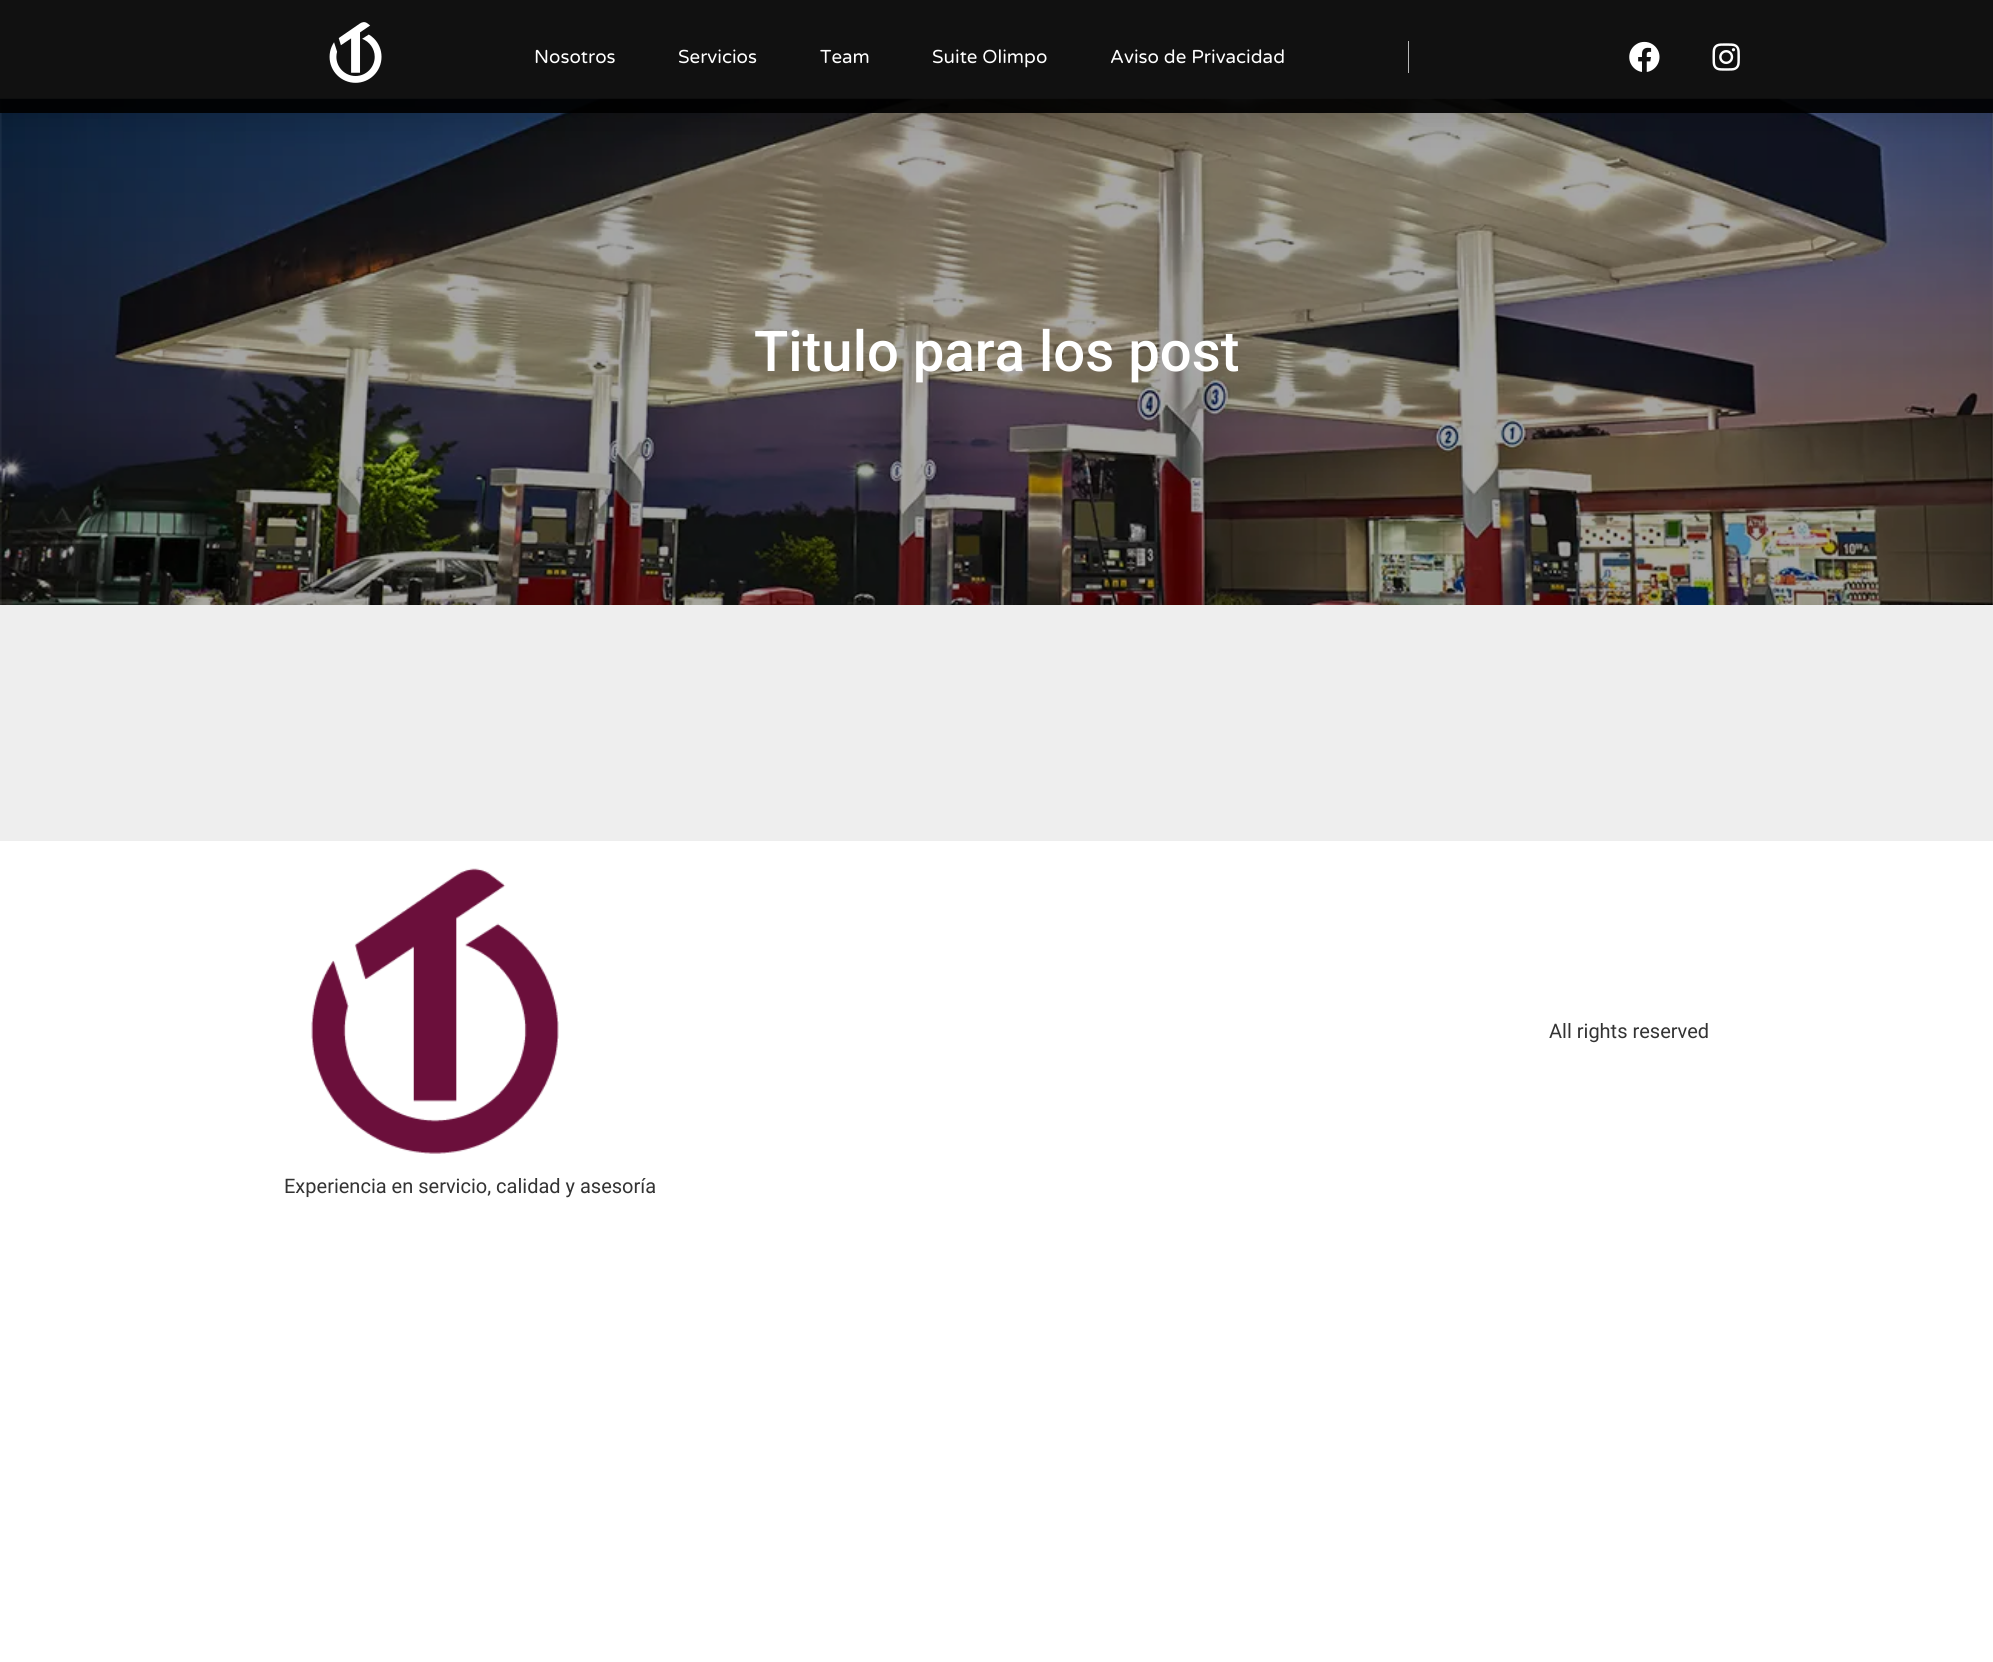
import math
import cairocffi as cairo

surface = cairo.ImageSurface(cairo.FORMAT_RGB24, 1993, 1662)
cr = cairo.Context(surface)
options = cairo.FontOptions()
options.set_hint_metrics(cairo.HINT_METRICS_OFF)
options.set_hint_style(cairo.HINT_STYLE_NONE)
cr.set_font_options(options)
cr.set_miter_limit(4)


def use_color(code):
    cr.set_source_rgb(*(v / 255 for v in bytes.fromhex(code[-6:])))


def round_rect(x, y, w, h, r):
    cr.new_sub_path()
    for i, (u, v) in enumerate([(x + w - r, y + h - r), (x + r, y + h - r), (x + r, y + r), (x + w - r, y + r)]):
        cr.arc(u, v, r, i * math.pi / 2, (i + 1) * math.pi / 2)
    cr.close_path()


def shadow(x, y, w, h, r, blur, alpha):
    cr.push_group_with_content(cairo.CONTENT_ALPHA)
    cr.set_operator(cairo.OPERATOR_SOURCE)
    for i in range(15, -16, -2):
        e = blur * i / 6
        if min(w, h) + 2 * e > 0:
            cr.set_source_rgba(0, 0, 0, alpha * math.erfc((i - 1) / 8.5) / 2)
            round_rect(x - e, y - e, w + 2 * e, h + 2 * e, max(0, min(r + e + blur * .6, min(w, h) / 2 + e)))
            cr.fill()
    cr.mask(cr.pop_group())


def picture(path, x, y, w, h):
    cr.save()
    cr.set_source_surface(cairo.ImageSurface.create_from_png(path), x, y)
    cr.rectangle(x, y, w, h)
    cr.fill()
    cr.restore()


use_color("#ffffff")
cr.paint()
picture("img4.png", 0, 98, 1993, 507)
cr.save()
cr.set_fill_rule(cairo.FILL_RULE_EVEN_ODD)
cr.new_path()
cr.move_to(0, 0)
cr.line_to(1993, 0)
cr.line_to(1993, 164)
cr.line_to(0, 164)
cr.close_path()
cr.move_to(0, 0)
cr.line_to(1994, 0)
cr.line_to(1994, 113)
cr.line_to(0, 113)
cr.close_path()
cr.clip()
use_color("#000000")
shadow(0, 13, 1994, 112, 0, 12.5, 0.1)
cr.restore()
cr.set_source_rgba(0, 0, 0, 0.93)
cr.rectangle(0, 0, 1993, 113)
cr.fill()
picture("img1.png", 329, 22, 53, 61)
cr.select_font_face("Varela Round")
cr.set_font_size(18.75)
use_color("#ffffff")
cr.move_to(534, 63)
cr.show_text("Nosotros")
cr.move_to(678, 63)
cr.show_text("Servicios")
cr.move_to(820, 63)
cr.show_text("Team")
cr.move_to(932, 63)
cr.show_text("Suite Olimpo")
cr.move_to(1110, 63)
cr.show_text("Aviso de Privacidad")
use_color("#b8b8b8")
cr.rectangle(1408, 41, 1, 32)
cr.fill()
picture("img2.png", 1629, 41, 31, 31)
picture("img3.png", 1712, 43, 28, 28)
cr.select_font_face("Roboto Medium")
cr.set_font_size(56.25)
use_color("#ffffff")
cr.move_to(754, 371)
cr.show_text("Titulo para los post")
use_color("#eeeeee")
cr.rectangle(0, 605, 1993, 236)
cr.fill()
cr.select_font_face("Roboto")
cr.set_font_size(20)
use_color("#333333")
cr.move_to(1549, 1038)
cr.show_text("All rights reserved")
picture("img5.png", 311, 868, 248, 286)
cr.move_to(284, 1193)
cr.show_text("Experiencia en servicio, calidad y asesoría")
surface.write_to_png("result.png")
